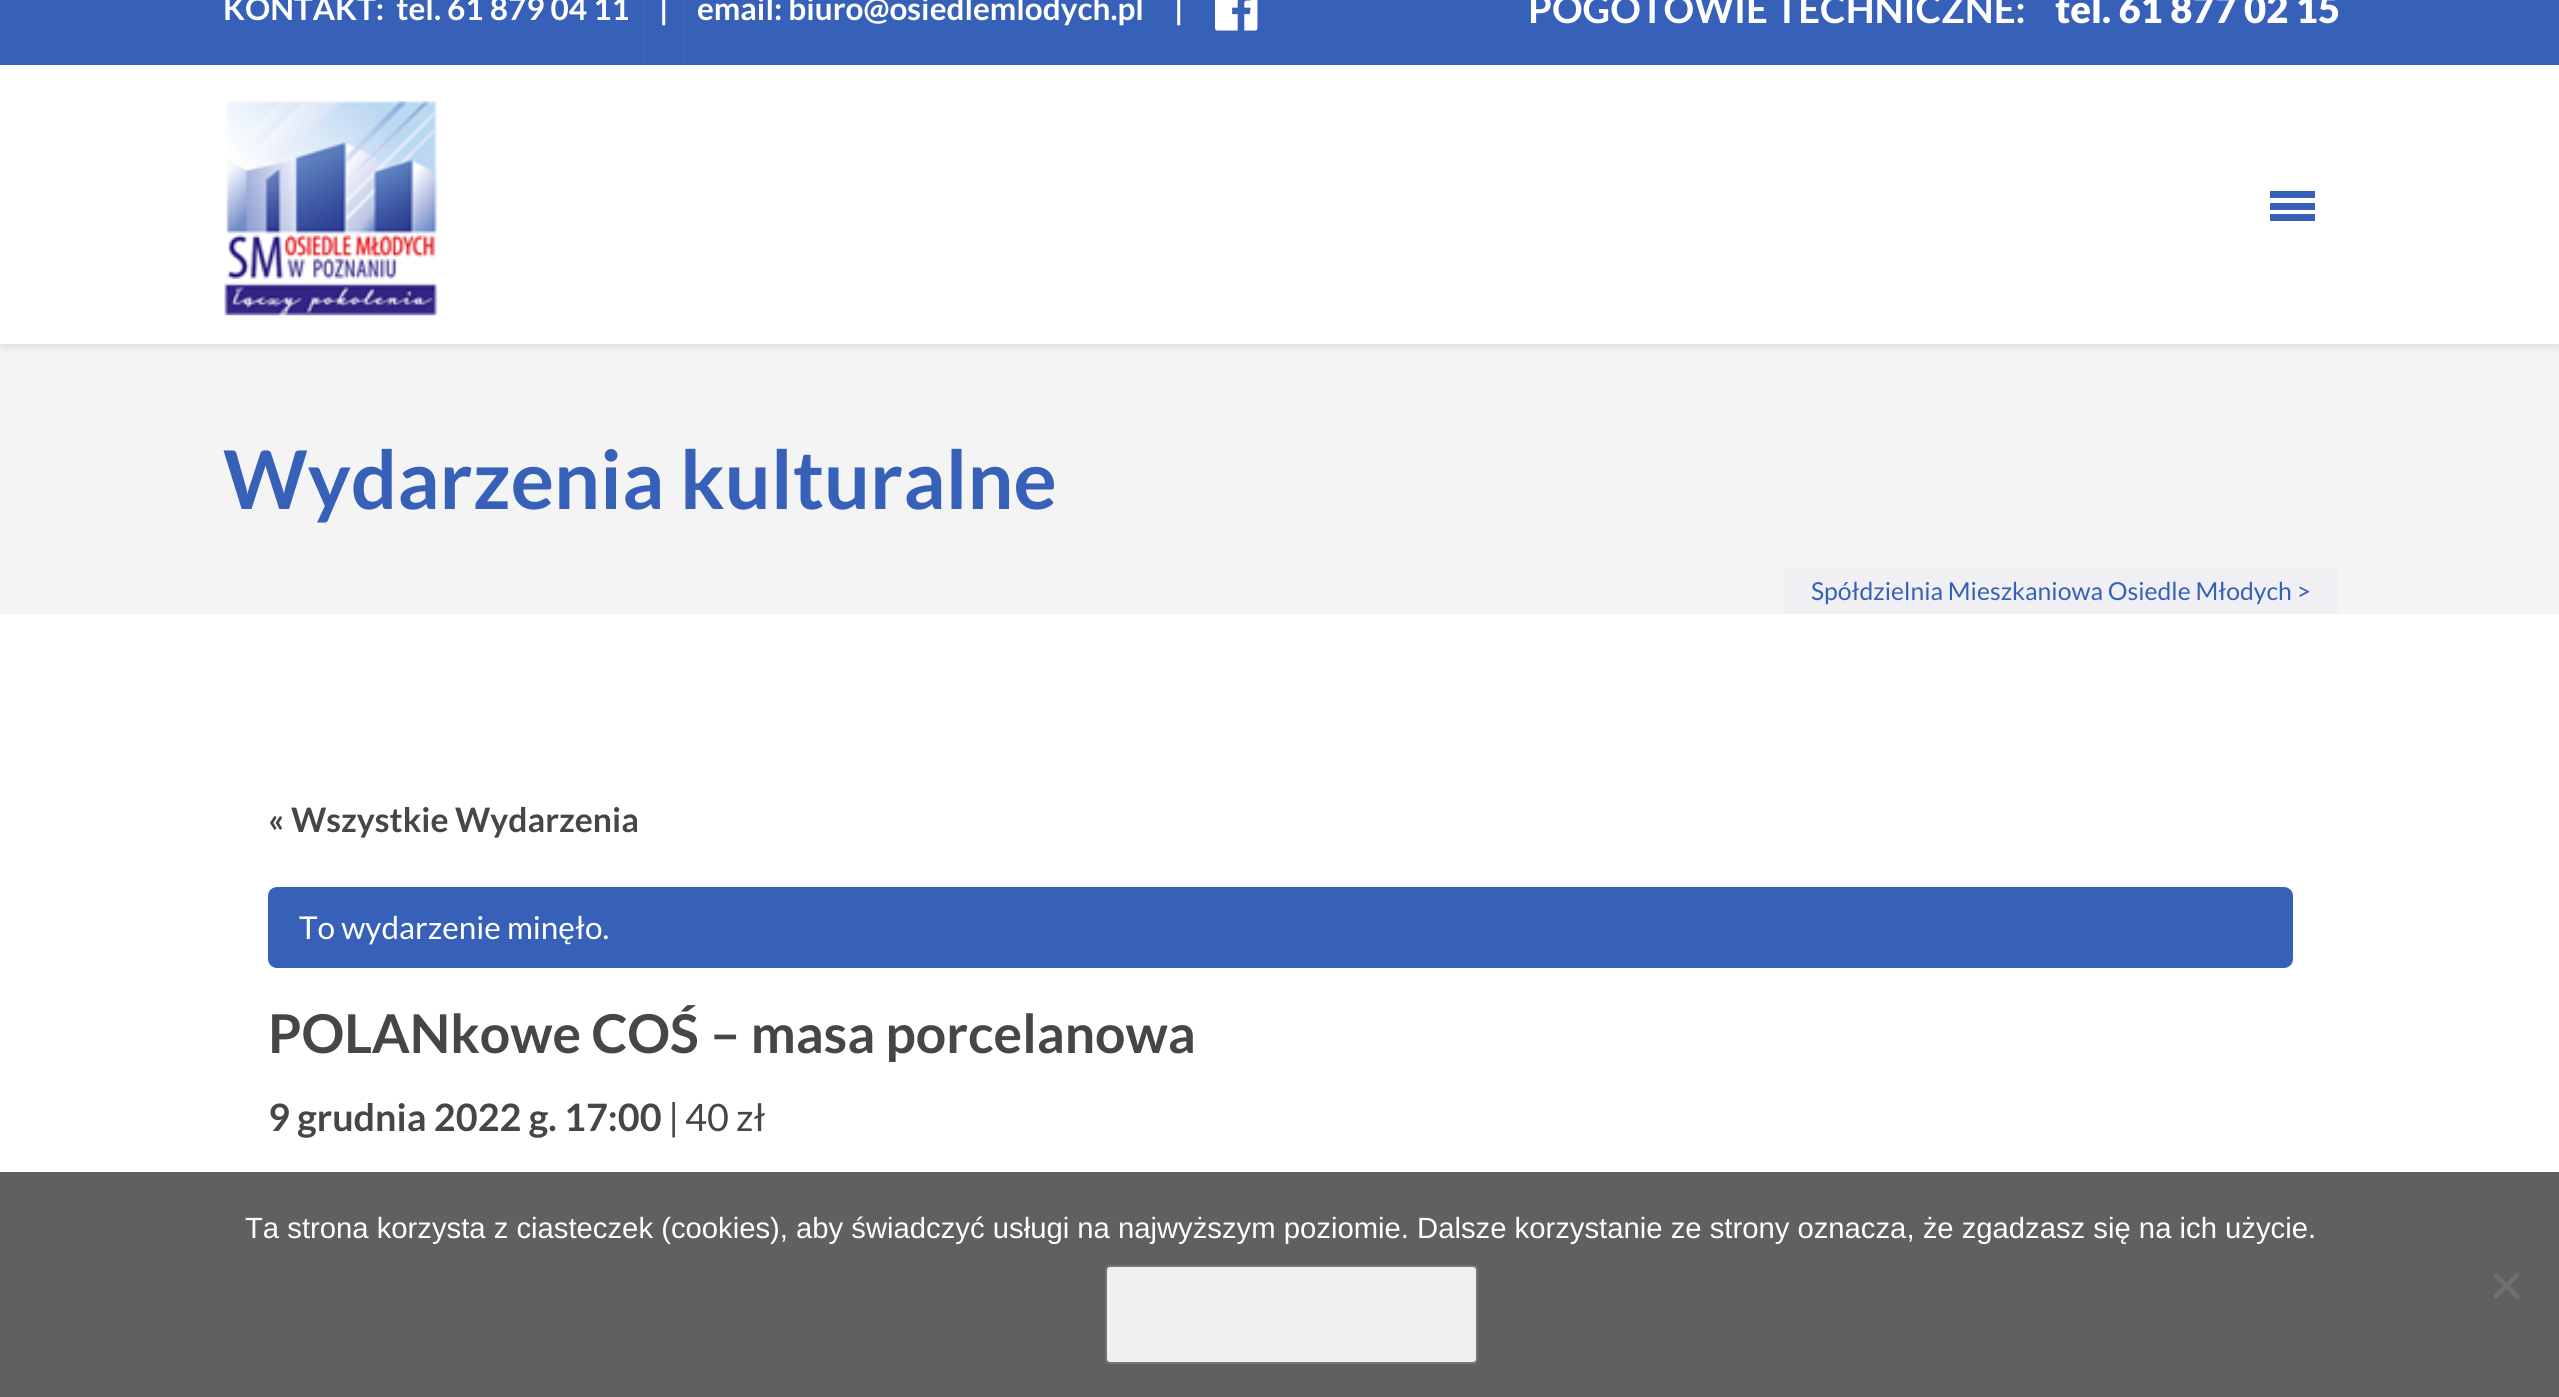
import math
import cairocffi as cairo

surface = cairo.ImageSurface(cairo.FORMAT_RGB24, 2559, 1397)
cr = cairo.Context(surface)
options = cairo.FontOptions()
options.set_hint_metrics(cairo.HINT_METRICS_OFF)
options.set_hint_style(cairo.HINT_STYLE_NONE)
cr.set_font_options(options)
cr.set_miter_limit(4)


def use_color(code):
    cr.set_source_rgb(*(v / 255 for v in bytes.fromhex(code[-6:])))


def round_rect(x, y, w, h, r):
    cr.new_sub_path()
    for i, (u, v) in enumerate([(x + w - r, y + h - r), (x + r, y + h - r), (x + r, y + r), (x + w - r, y + r)]):
        cr.arc(u, v, r, i * math.pi / 2, (i + 1) * math.pi / 2)
    cr.close_path()


def shadow(x, y, w, h, r, blur, alpha):
    cr.push_group_with_content(cairo.CONTENT_ALPHA)
    cr.set_operator(cairo.OPERATOR_SOURCE)
    for i in range(15, -16, -2):
        e = blur * i / 6
        if min(w, h) + 2 * e > 0:
            cr.set_source_rgba(0, 0, 0, alpha * math.erfc((i - 1) / 8.5) / 2)
            round_rect(x - e, y - e, w + 2 * e, h + 2 * e, max(0, min(r + e + blur * .6, min(w, h) / 2 + e)))
            cr.fill()
    cr.mask(cr.pop_group())


def picture(path, x, y, w, h):
    cr.save()
    cr.set_source_surface(cairo.ImageSurface.create_from_png(path), x, y)
    cr.rectangle(x, y, w, h)
    cr.fill()
    cr.restore()


use_color("#ffffff")
cr.paint()
use_color("#3761b8")
cr.rectangle(0, 0, 2559, 63)
cr.fill()
use_color("#3963b9")
cr.rectangle(0, 63, 2559, 2)
cr.fill()
cr.select_font_face("Lato", cairo.FONT_SLANT_NORMAL, cairo.FONT_WEIGHT_BOLD)
cr.set_font_size(31.5)
use_color("#ffffff")
cr.move_to(223, 20)
cr.show_text("KONTAKT:  tel. 61 879 04 11")
use_color("#3b65ba")
cr.rectangle(644, 0, 2, 65)
cr.fill()
use_color("#ffffff")
cr.move_to(659, 20)
cr.show_text("|")
use_color("#3b65ba")
cr.rectangle(682, 0, 2, 65)
cr.fill()
use_color("#ffffff")
cr.move_to(697, 20)
cr.show_text("email: biuro@osiedlemlodych.pl")
use_color("#3b65ba")
cr.rectangle(1159, 0, 2, 65)
cr.fill()
use_color("#ffffff")
cr.move_to(1174, 20)
cr.show_text("|")
picture("img1.png", 1215, 0, 43, 31)
cr.set_font_size(38.25)
cr.move_to(1528, 23)
cr.show_text("POGOTOWIE TECHNICZNE:")
use_color("#3b65ba")
cr.rectangle(2039, 0, 2, 65)
cr.fill()
cr.select_font_face("Lato Black")
use_color("#ffffff")
cr.move_to(2055, 23)
cr.show_text("tel. 61 877 02 15")
picture("img2.png", 224, 100, 214, 216)
use_color("#3761b8")
cr.rectangle(2270, 191, 45, 7)
cr.fill()
cr.rectangle(2270, 203, 45, 7)
cr.fill()
cr.rectangle(2270, 214, 45, 7)
cr.fill()
use_color("#f4f4f4")
cr.rectangle(0, 344, 2559, 270)
cr.fill()
cr.save()
cr.rectangle(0, 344, 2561, 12)
cr.clip()
use_color("#000000")
shadow(0, 335, 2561, 12, 6, 4.5, 0.1)
cr.restore()
cr.select_font_face("Lato", cairo.FONT_SLANT_NORMAL, cairo.FONT_WEIGHT_BOLD)
cr.set_font_size(81)
use_color("#3761b8")
cr.move_to(223, 509)
cr.show_text("Wydarzenia kulturalne")
use_color("#f0f0f4")
cr.new_path()
cr.move_to(1789, 567)
cr.line_to(2333, 567)
cr.curve_to(2336, 567, 2338, 569, 2338, 572)
cr.line_to(2338, 614)
cr.line_to(1784, 614)
cr.line_to(1784, 572)
cr.curve_to(1784, 569, 1786, 567, 1789, 567)
cr.close_path()
cr.fill()
cr.select_font_face("Lato")
cr.set_font_size(24.75)
use_color("#3761b8")
cr.move_to(1811, 600)
cr.show_text("Spółdzielnia Mieszkaniowa Osiedle Młodych >")
cr.select_font_face("Lato", cairo.FONT_SLANT_NORMAL, cairo.FONT_WEIGHT_BOLD)
cr.set_font_size(33.75)
use_color("#464646")
cr.move_to(268, 832)
cr.show_text("« Wszystkie Wydarzenia")
use_color("#3761b8")
round_rect(268, 887, 2025, 81, 9)
cr.fill()
cr.select_font_face("Lato")
cr.set_font_size(31.5)
use_color("#ffffff")
cr.move_to(299, 939)
cr.show_text("To wydarzenie minęło.")
cr.select_font_face("Lato", cairo.FONT_SLANT_NORMAL, cairo.FONT_WEIGHT_BOLD)
cr.set_font_size(53.5)
use_color("#464646")
cr.move_to(268, 1053)
cr.show_text("POLANkowe COŚ – masa porcelanowa")
cr.set_font_size(37.75)
cr.move_to(268, 1131)
cr.show_text("9 grudnia 2022 g. 17:00")
cr.select_font_face("Lato")
cr.move_to(668, 1131)
cr.show_text("|")
cr.move_to(685, 1131)
cr.show_text("40 zł")
use_color("#606060")
cr.rectangle(0, 1172, 2559, 225)
cr.fill()
cr.select_font_face("Liberation Sans")
cr.set_font_size(29.25)
use_color("#ffffff")
cr.move_to(245, 1238)
cr.show_text("Ta strona korzysta z ciasteczek (cookies), aby świadczyć usługi na najwyższym poziomie. Dalsze korzystanie ze strony oznacza, że zgadzasz się na ich użycie.")
use_color("#efefef")
round_rect(1106, 1266, 371, 97, 4)
cr.fill_preserve()
use_color("#767676")
cr.stroke()
use_color("#707070")
cr.new_path()
cr.move_to(2517, 1272.5)
cr.line_to(2520, 1275.5)
cr.line_to(2496, 1299.5)
cr.line_to(2493, 1296)
cr.close_path()
cr.fill()
cr.new_path()
cr.move_to(2493, 1275.5)
cr.line_to(2496, 1272.5)
cr.line_to(2520, 1296)
cr.line_to(2517, 1299.5)
cr.close_path()
cr.fill()
surface.write_to_png("result.png")
